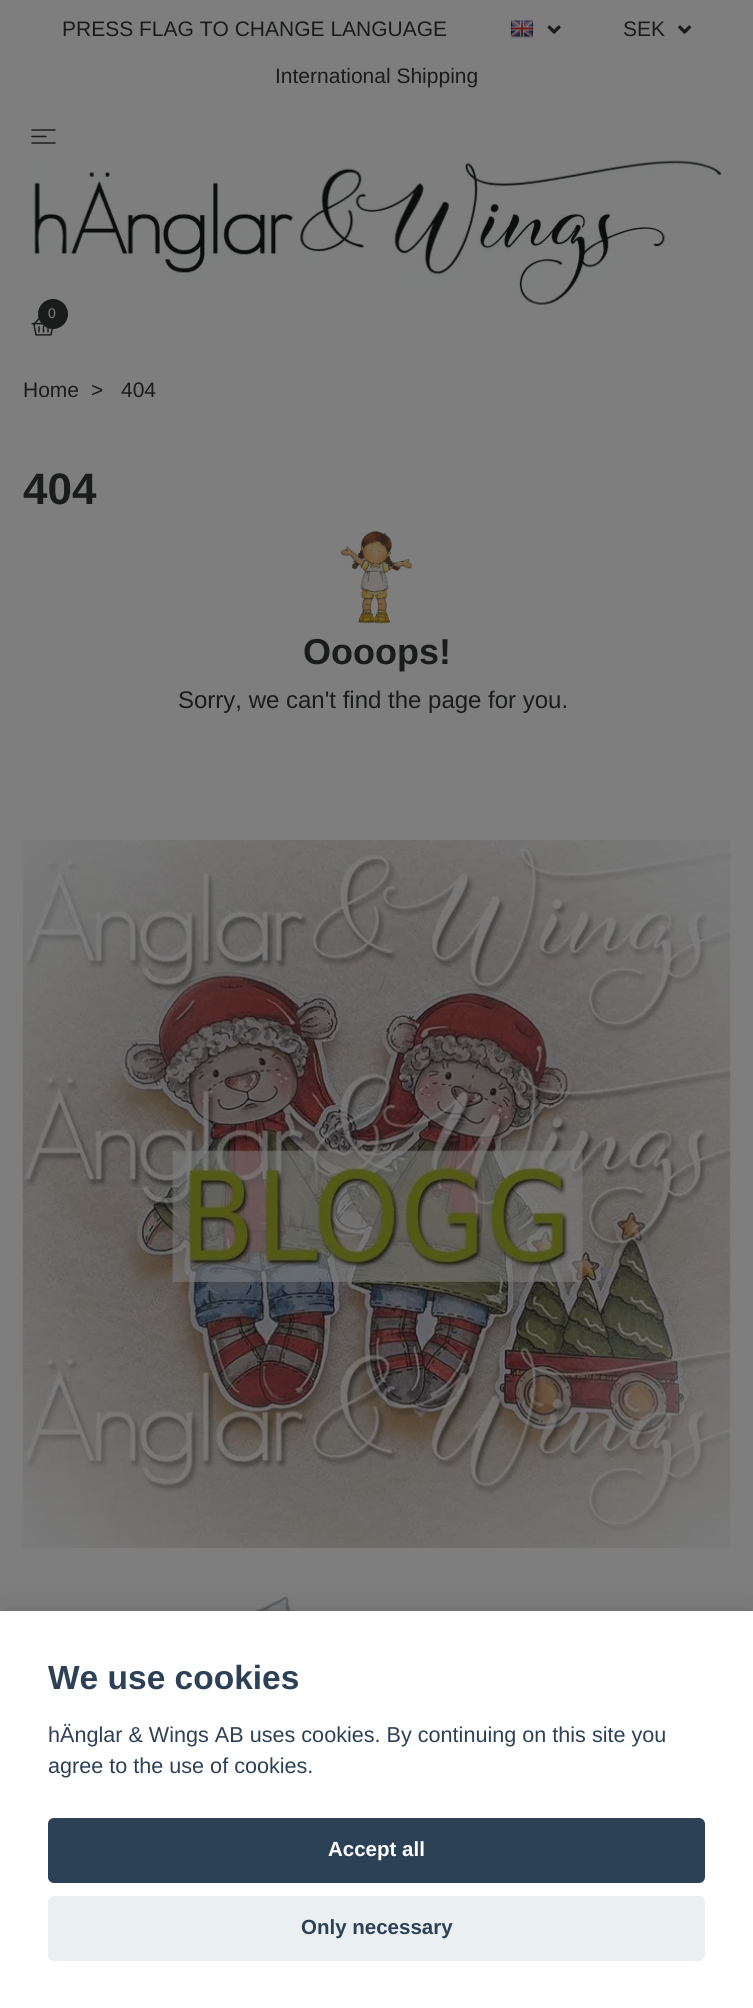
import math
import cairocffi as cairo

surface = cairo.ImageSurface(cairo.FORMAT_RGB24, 753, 2008)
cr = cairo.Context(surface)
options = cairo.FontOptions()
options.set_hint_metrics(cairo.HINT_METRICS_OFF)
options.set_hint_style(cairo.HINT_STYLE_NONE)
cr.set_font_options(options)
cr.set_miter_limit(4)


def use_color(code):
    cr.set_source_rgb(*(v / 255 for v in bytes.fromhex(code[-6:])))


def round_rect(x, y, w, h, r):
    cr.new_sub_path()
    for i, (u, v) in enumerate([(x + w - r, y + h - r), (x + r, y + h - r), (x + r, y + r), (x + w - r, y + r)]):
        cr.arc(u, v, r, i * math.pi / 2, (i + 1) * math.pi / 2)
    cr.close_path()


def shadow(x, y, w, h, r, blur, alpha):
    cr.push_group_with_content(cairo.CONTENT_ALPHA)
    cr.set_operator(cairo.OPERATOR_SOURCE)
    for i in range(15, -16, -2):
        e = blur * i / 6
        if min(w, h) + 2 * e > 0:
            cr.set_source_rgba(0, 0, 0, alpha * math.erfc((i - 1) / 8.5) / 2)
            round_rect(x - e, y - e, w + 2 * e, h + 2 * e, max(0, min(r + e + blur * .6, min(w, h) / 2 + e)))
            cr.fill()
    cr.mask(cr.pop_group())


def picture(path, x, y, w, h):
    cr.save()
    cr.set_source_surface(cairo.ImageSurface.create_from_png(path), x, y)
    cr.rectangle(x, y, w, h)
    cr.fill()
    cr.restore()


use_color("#7e7e7f")
cr.paint()
cr.select_font_face("Liberation Sans")
cr.set_font_size(21)
use_color("#1a1c1b")
cr.move_to(62, 36)
cr.show_text("PRESS FLAG TO CHANGE LANGUAGE")
picture("img1.png", 510, 20, 24, 19)
picture("img2.png", 547, 25, 14, 9)
cr.move_to(623, 36)
cr.show_text("SEK")
picture("img3.png", 678, 25, 14, 9)
cr.move_to(275, 83)
cr.show_text("International Shipping")
cr.new_path()
cr.move_to(32, 130)
cr.line_to(55, 130)
cr.move_to(32, 136.5)
cr.line_to(46, 136.5)
cr.move_to(32, 143)
cr.line_to(55, 143)
cr.set_line_width(1.5)
cr.set_line_cap(cairo.LINE_CAP_ROUND)
cr.set_line_join(cairo.LINE_JOIN_ROUND)
cr.stroke()
picture("img4.png", 34, 160, 688, 145)
picture("img5.png", 31, 317, 23, 19)
cr.arc(53, 314, 15, 0, 2 * math.pi)
cr.fill()
cr.set_font_size(14)
use_color("#7e7e7f")
cr.move_to(48, 318)
cr.show_text("0")
cr.set_font_size(21)
use_color("#1a1c1b")
cr.move_to(23, 397)
cr.show_text("Home")
cr.move_to(91, 397)
cr.show_text(">")
cr.move_to(121, 397)
cr.show_text("404")
cr.select_font_face("Liberation Sans", cairo.FONT_SLANT_NORMAL, cairo.FONT_WEIGHT_BOLD)
cr.set_font_size(44)
cr.move_to(23, 504)
cr.show_text("404")
picture("img6.png", 340, 531, 72, 93)
cr.set_font_size(36)
cr.move_to(303, 664)
cr.show_text("Oooops!")
cr.select_font_face("Liberation Sans")
cr.set_font_size(24)
cr.move_to(178, 708)
cr.show_text("Sorry, we can't find the page for you.")
picture("img7.png", 22, 840, 709, 708)
picture("img8.png", 111, 1596, 530, 15)
use_color("#020203")
shadow(0, 1626, 753, 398, 0, 22.5, 0.28)
use_color("#ffffff")
cr.rectangle(0, 1611, 753, 397)
cr.fill()
cr.select_font_face("Liberation Sans", cairo.FONT_SLANT_NORMAL, cairo.FONT_WEIGHT_BOLD)
cr.set_font_size(33.5)
use_color("#2d4156")
cr.move_to(48, 1689)
cr.show_text("We use cookies")
cr.select_font_face("Liberation Sans")
cr.set_font_size(21.6)
cr.move_to(48, 1742)
cr.show_text("hÄnglar & Wings AB uses cookies. By continuing on this site you")
cr.move_to(48, 1773)
cr.show_text("agree to the use of cookies.")
round_rect(48, 1818, 657, 65, 6)
cr.fill()
cr.select_font_face("Liberation Sans", cairo.FONT_SLANT_NORMAL, cairo.FONT_WEIGHT_BOLD)
cr.set_font_size(20.5)
use_color("#ffffff")
cr.move_to(328, 1856)
cr.show_text("Accept all")
use_color("#eaeff2")
round_rect(48, 1896, 657, 65, 6)
cr.fill()
use_color("#2d4156")
cr.move_to(301, 1934)
cr.show_text("Only necessary")
surface.write_to_png("result.png")
